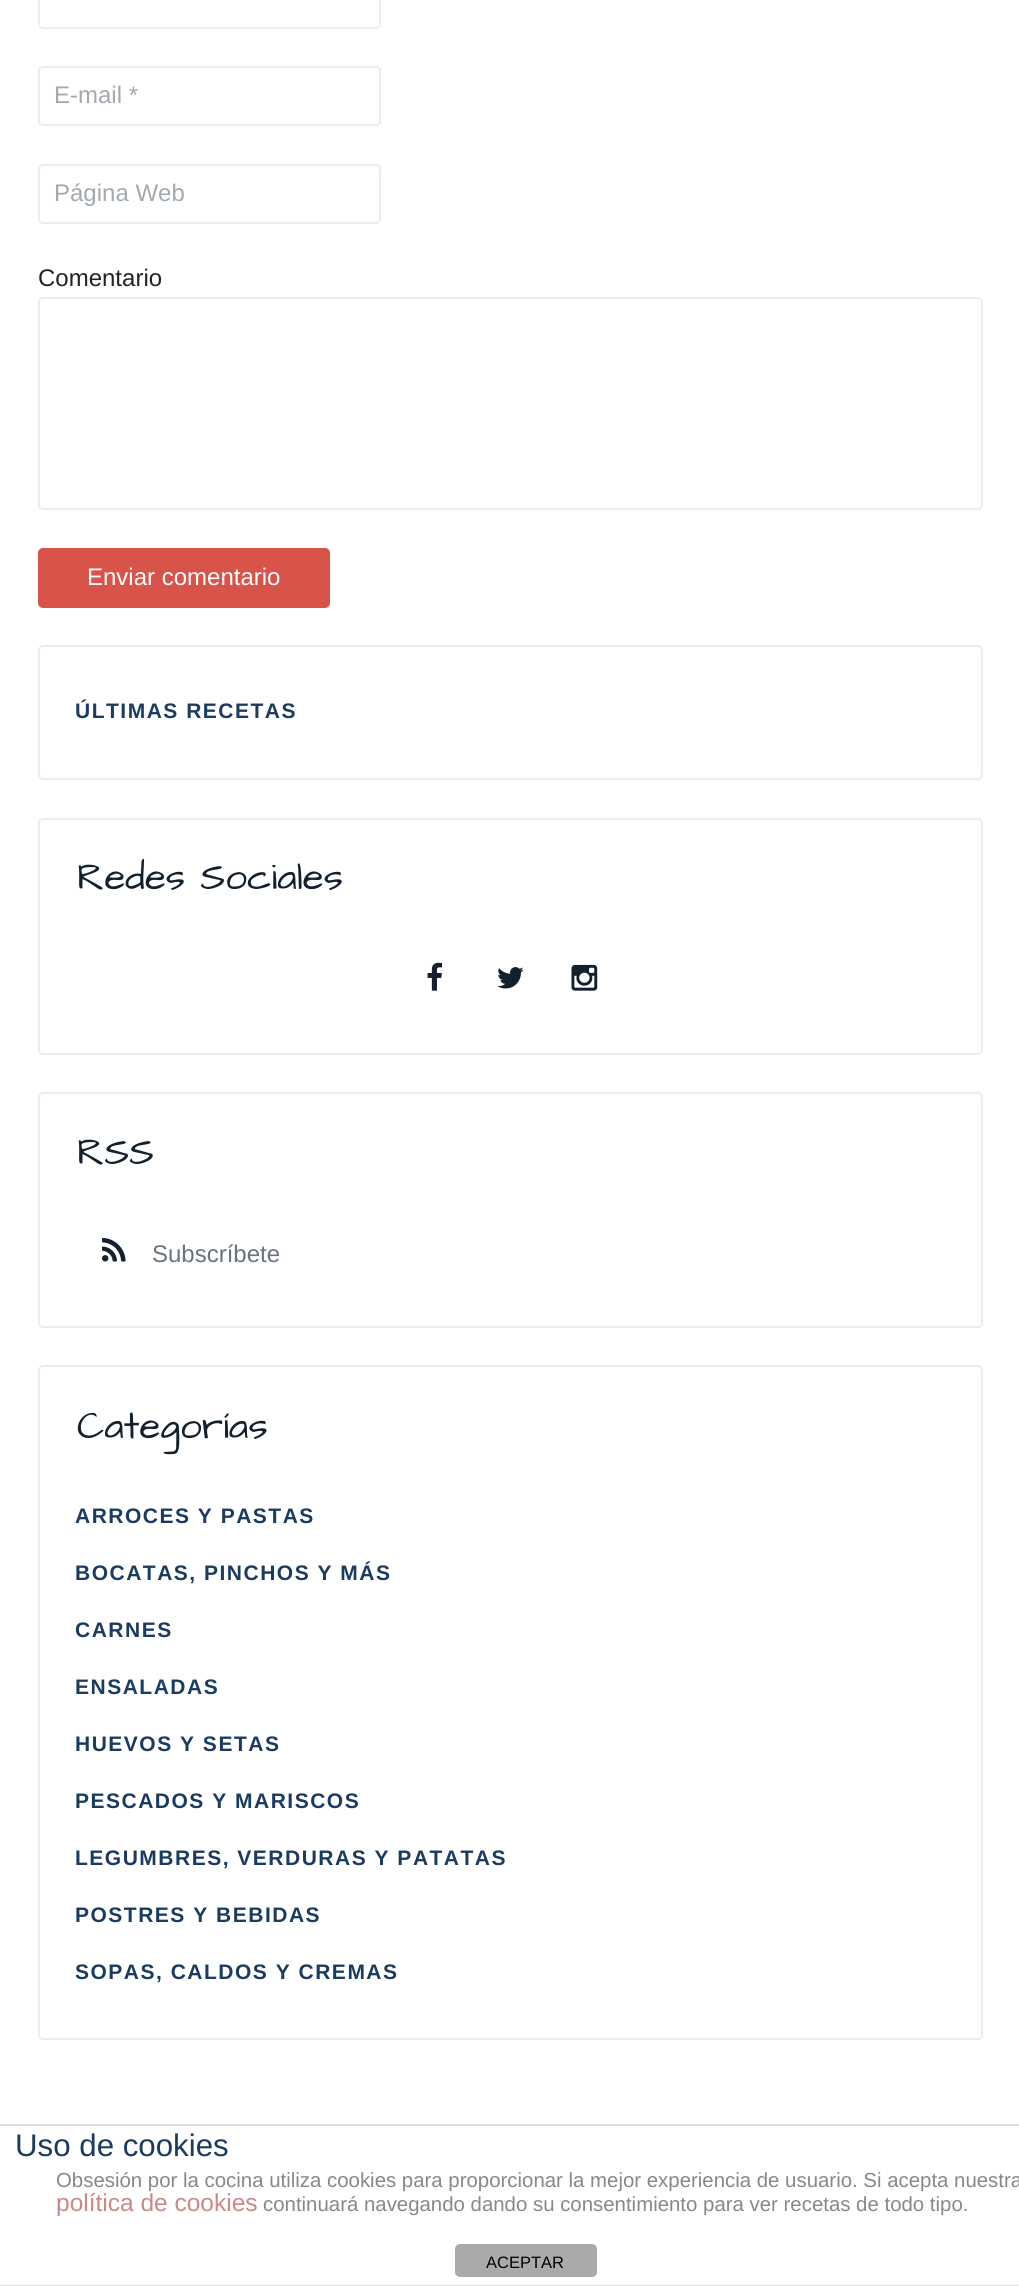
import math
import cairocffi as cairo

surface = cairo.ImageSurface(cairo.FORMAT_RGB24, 1019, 2286)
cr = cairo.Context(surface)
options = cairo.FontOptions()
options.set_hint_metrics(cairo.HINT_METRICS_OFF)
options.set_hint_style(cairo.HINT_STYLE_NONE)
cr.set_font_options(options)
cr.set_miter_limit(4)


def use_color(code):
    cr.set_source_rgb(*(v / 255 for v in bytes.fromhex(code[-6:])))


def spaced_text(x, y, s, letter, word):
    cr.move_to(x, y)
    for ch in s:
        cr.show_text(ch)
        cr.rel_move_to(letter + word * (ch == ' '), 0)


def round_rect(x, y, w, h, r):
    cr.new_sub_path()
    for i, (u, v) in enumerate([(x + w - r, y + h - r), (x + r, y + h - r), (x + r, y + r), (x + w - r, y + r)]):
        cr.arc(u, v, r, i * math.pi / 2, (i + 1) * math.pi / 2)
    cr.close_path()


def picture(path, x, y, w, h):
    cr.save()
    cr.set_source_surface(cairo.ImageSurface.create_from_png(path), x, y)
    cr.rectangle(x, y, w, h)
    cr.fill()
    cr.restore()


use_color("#ffffff")
cr.paint()
round_rect(39, -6, 341, 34, 4)
use_color("#ededf0")
cr.stroke()
round_rect(39, 67, 341, 58, 4)
cr.stroke()
cr.select_font_face("Liberation Sans")
cr.set_font_size(24)
use_color("#a3a9b0")
cr.move_to(54, 103)
cr.show_text("E-mail *")
round_rect(39, 165, 341, 58, 4)
use_color("#ededf0")
cr.stroke()
use_color("#a3a9b0")
cr.move_to(54, 201)
cr.show_text("Página Web")
use_color("#222222")
cr.move_to(38, 286)
cr.show_text("Comentario")
round_rect(39, 298, 943, 211, 4)
use_color("#ededf0")
cr.stroke()
use_color("#d85349")
round_rect(38, 548, 292, 60, 5)
cr.fill()
use_color("#ffffff")
cr.move_to(87, 585)
cr.show_text("Enviar comentario")
round_rect(39, 646, 943, 133, 4)
use_color("#ededf0")
cr.stroke()
cr.select_font_face("Liberation Sans", cairo.FONT_SLANT_NORMAL, cairo.FONT_WEIGHT_BOLD)
cr.set_font_size(21)
use_color("#1b3c60")
spaced_text(75, 718, "ÚLTIMAS RECETAS", 1.5, 0)
round_rect(39, 819, 943, 235, 4)
use_color("#ededf0")
cr.stroke()
cr.select_font_face("Architects Daughter")
cr.set_font_size(38.5)
use_color("#13202e")
cr.move_to(77, 889)
cr.show_text("Redes Sociales")
picture("img1.png", 427, 962, 16, 29)
picture("img2.png", 497, 967, 27, 22)
picture("img3.png", 571, 964, 27, 27)
round_rect(39, 1093, 943, 234, 4)
use_color("#ededf0")
cr.stroke()
use_color("#13202e")
cr.move_to(77, 1164)
cr.show_text("RSS")
picture("img4.png", 102, 1237, 24, 25)
cr.select_font_face("Liberation Sans")
cr.set_font_size(24)
use_color("#687480")
cr.move_to(152, 1262)
cr.show_text("Subscríbete")
round_rect(39, 1366, 943, 673, 4)
use_color("#ededf0")
cr.stroke()
cr.select_font_face("Architects Daughter")
cr.set_font_size(38.5)
use_color("#13202e")
cr.move_to(77, 1438)
cr.show_text("Categorías")
cr.select_font_face("Liberation Sans", cairo.FONT_SLANT_NORMAL, cairo.FONT_WEIGHT_BOLD)
cr.set_font_size(21)
use_color("#1b3c60")
spaced_text(75, 1523, "ARROCES Y PASTAS", 1.5, 0)
spaced_text(75, 1580, "BOCATAS, PINCHOS Y MÁS", 1.5, 0)
spaced_text(75, 1637, "CARNES", 1.5, 0)
spaced_text(75, 1694, "ENSALADAS", 1.5, 0)
spaced_text(75, 1751, "HUEVOS Y SETAS", 1.5, 0)
spaced_text(75, 1808, "PESCADOS Y MARISCOS", 1.5, 0)
spaced_text(75, 1865, "LEGUMBRES, VERDURAS Y PATATAS", 1.5, 0)
spaced_text(75, 1922, "POSTRES Y BEBIDAS", 1.5, 0)
spaced_text(75, 1979, "SOPAS, CALDOS Y CREMAS", 1.5, 0)
use_color("#dddddd")
cr.rectangle(0, 2124, 1019, 2)
cr.fill()
cr.rectangle(0, 2285, 1019, 1)
cr.fill()
cr.select_font_face("Liberation Sans")
cr.set_font_size(31.25)
use_color("#1b3c60")
cr.move_to(15, 2156)
cr.show_text("Uso de cookies")
cr.set_font_size(20.4)
use_color("#888888")
cr.move_to(56, 2187)
cr.show_text("Obsesión por la cocina utiliza cookies para proporcionar la mejor experiencia de usuario. Si acepta nuestra")
cr.set_font_size(24.5)
use_color("#cc8888")
cr.move_to(56, 2211)
cr.show_text("política de cookies")
cr.set_font_size(20.4)
use_color("#888888")
cr.move_to(263, 2211)
cr.show_text("continuará navegando dando su consentimiento para ver recetas de todo tipo.")
use_color("#aaaaaa")
round_rect(455, 2244, 142, 33, 5)
cr.fill()
cr.set_font_size(16.5)
use_color("#000000")
cr.move_to(486, 2268)
cr.show_text("ACEPTAR")
surface.write_to_png("result.png")
